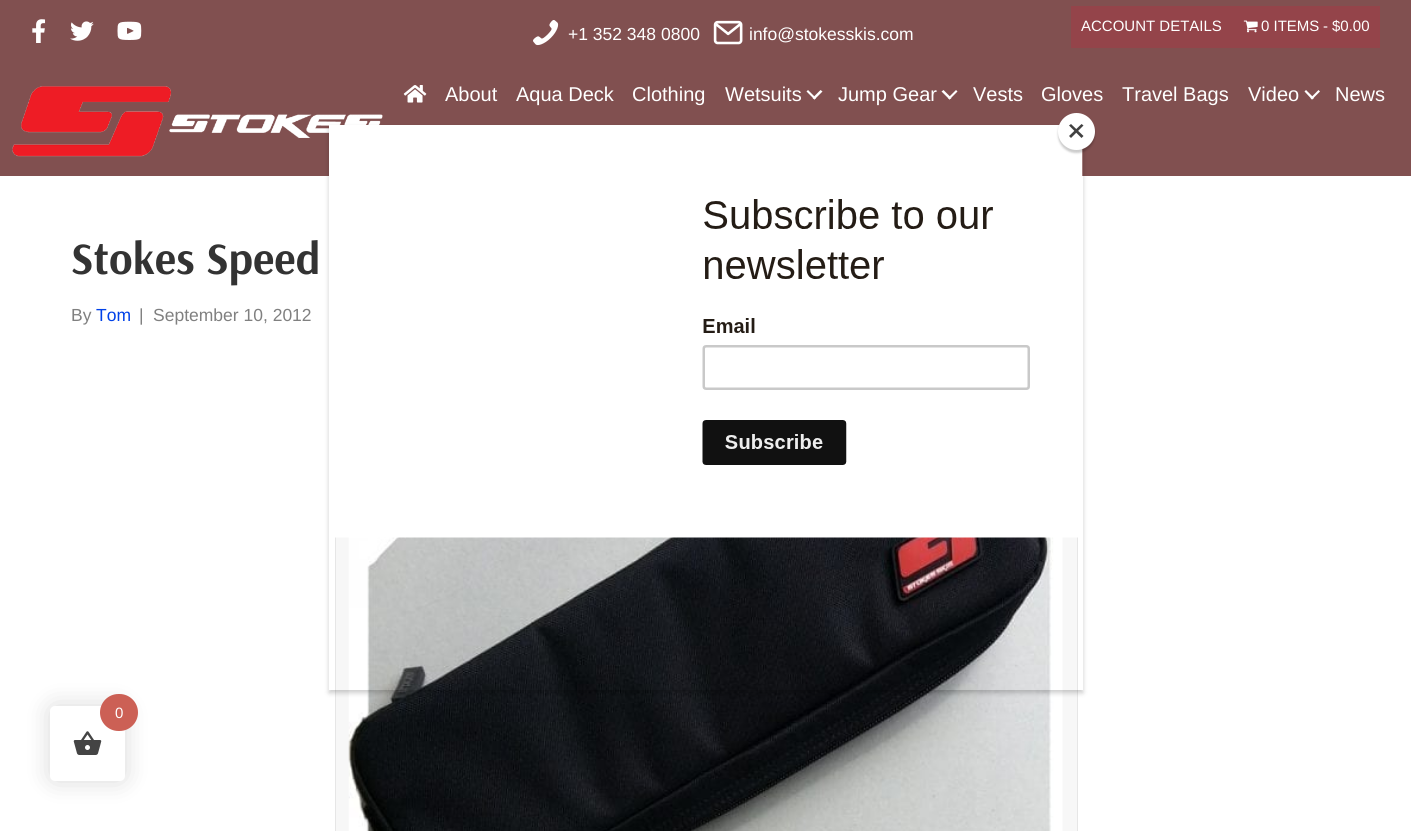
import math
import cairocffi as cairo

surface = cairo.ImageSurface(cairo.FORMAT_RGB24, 1411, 831)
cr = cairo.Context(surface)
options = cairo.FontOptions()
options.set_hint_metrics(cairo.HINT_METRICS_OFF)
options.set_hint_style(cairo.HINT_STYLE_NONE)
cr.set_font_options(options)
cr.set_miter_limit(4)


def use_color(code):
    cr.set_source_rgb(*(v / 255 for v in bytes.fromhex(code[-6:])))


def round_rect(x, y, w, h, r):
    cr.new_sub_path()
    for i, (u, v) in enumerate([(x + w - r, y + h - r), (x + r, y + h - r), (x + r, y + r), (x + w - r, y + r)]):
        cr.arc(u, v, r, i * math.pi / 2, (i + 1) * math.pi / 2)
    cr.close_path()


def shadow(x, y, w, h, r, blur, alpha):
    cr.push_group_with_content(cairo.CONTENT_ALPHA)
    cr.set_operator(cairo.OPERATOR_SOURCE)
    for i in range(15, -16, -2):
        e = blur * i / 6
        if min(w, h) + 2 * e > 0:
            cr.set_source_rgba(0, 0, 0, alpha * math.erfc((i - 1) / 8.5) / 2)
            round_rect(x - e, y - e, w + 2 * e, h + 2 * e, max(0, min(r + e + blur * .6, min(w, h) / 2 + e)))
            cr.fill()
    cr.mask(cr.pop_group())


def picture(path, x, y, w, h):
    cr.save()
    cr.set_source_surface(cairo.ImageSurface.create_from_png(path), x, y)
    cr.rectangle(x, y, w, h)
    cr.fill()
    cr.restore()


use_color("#ffffff")
cr.paint()
use_color("#815050")
cr.rectangle(0, 0, 1411, 176)
cr.fill()
picture("img1.png", 32, 19, 14, 24)
picture("img2.png", 70, 21, 24, 20)
picture("img3.png", 117, 21, 25, 19)
picture("img4.png", 533, 20, 26, 26)
cr.select_font_face("Liberation Sans")
cr.set_font_size(17.5)
use_color("#ffffff")
cr.move_to(568, 40)
cr.show_text("+1 352 348 0800")
picture("img5.png", 713, 20, 30, 25)
cr.move_to(749, 40)
cr.show_text("info@stokesskis.com")
use_color("#94444a")
cr.rectangle(1071, 6, 309, 42)
cr.fill()
cr.set_font_size(15)
use_color("#ffffff")
cr.move_to(1081, 31)
cr.show_text("ACCOUNT DETAILS")
picture("img6.png", 1243, 20, 15, 13)
cr.move_to(1261, 31)
cr.show_text("0 ITEMS")
cr.move_to(1323, 31)
cr.show_text("-")
cr.move_to(1332, 31)
cr.show_text("$0.00")
picture("img7.png", 12, 86, 371, 71)
picture("img8.png", 403, 85, 24, 18)
cr.set_font_size(20)
cr.move_to(445, 101)
cr.show_text("About")
cr.move_to(516, 101)
cr.show_text("Aqua Deck")
cr.move_to(632, 101)
cr.show_text("Clothing")
cr.move_to(725, 101)
cr.show_text("Wetsuits")
cr.new_path()
cr.move_to(820.5, 90)
cr.line_to(822.5, 91.5)
cr.line_to(814.5, 99.5)
cr.line_to(812.5, 98)
cr.close_path()
cr.fill()
cr.new_path()
cr.move_to(808, 90)
cr.line_to(816, 98)
cr.line_to(814.5, 99.5)
cr.line_to(806.5, 91.5)
cr.close_path()
cr.fill()
cr.move_to(838, 101)
cr.show_text("Jump Gear")
cr.new_path()
cr.move_to(956, 90)
cr.line_to(957.5, 91.5)
cr.line_to(949.5, 99.5)
cr.line_to(948, 98)
cr.close_path()
cr.fill()
cr.new_path()
cr.move_to(943.5, 90)
cr.line_to(951.5, 98)
cr.line_to(949.5, 99.5)
cr.line_to(941.5, 91.5)
cr.close_path()
cr.fill()
cr.move_to(973, 101)
cr.show_text("Vests")
cr.move_to(1041, 101)
cr.show_text("Gloves")
cr.move_to(1122, 101)
cr.show_text("Travel Bags")
cr.move_to(1248, 101)
cr.show_text("Video")
cr.new_path()
cr.move_to(1318.5, 90)
cr.line_to(1320, 91.5)
cr.line_to(1312, 99.5)
cr.line_to(1310.5, 98)
cr.close_path()
cr.fill()
cr.new_path()
cr.move_to(1306, 90)
cr.line_to(1314, 98)
cr.line_to(1312, 99.5)
cr.line_to(1304.5, 91.5)
cr.close_path()
cr.fill()
cr.move_to(1335, 101)
cr.show_text("News")
cr.select_font_face("Arsenal", cairo.FONT_SLANT_NORMAL, cairo.FONT_WEIGHT_BOLD)
cr.set_font_size(45)
use_color("#333333")
cr.move_to(71, 274)
cr.show_text("Stokes Speed")
cr.select_font_face("Liberation Sans")
cr.set_font_size(17.5)
use_color("#808080")
cr.move_to(71, 321)
cr.show_text("By")
use_color("#0041e8")
cr.move_to(96, 321)
cr.show_text("Tom")
use_color("#808080")
cr.move_to(139, 321)
cr.show_text("|")
cr.move_to(153, 321)
cr.show_text("September 10, 2012")
use_color("#f7f7f7")
cr.rectangle(336, 537, 741, 294)
cr.fill()
cr.rectangle(335.5, 365.5, 742, 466)
use_color("#e6e6e6")
cr.set_line_width(1)
cr.stroke()
picture("img9.png", 348, 537, 715, 294)
cr.save()
cr.set_fill_rule(cairo.FILL_RULE_EVEN_ODD)
cr.new_path()
cr.move_to(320, 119)
cr.line_to(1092, 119)
cr.line_to(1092, 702)
cr.line_to(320, 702)
cr.close_path()
cr.move_to(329, 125)
cr.line_to(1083, 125)
cr.line_to(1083, 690)
cr.line_to(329, 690)
cr.close_path()
cr.clip()
use_color("#000000")
shadow(329, 128, 754, 565, 0, 2.5, 0.2)
cr.restore()
picture("img10.png", 329, 125, 754, 413)
use_color("#000000")
shadow(1058, 115, 37, 38, 18.5, 1, 0.2)
use_color("#ffffff")
cr.arc(1076.5, 131.5, 18.5, 0, 2 * math.pi)
cr.fill()
use_color("#414141")
cr.new_path()
cr.move_to(1081.5, 124)
cr.line_to(1083.5, 125.5)
cr.line_to(1071, 138)
cr.line_to(1069, 136)
cr.close_path()
cr.fill()
cr.new_path()
cr.move_to(1069, 125.5)
cr.line_to(1071, 124)
cr.line_to(1083.5, 136)
cr.line_to(1081.5, 138)
cr.close_path()
cr.fill()
use_color("#000000")
shadow(50, 706, 75, 75, 5, 12.5, 0.15)
use_color("#ffffff")
round_rect(50, 706, 75, 75, 5)
cr.fill()
use_color("#cc6055")
round_rect(100, 694, 38, 37, 18.5)
cr.fill()
cr.set_font_size(15)
use_color("#ffffff")
cr.move_to(115, 718)
cr.show_text("0")
picture("img11.png", 73, 731, 29, 24)
surface.write_to_png("result.png")
